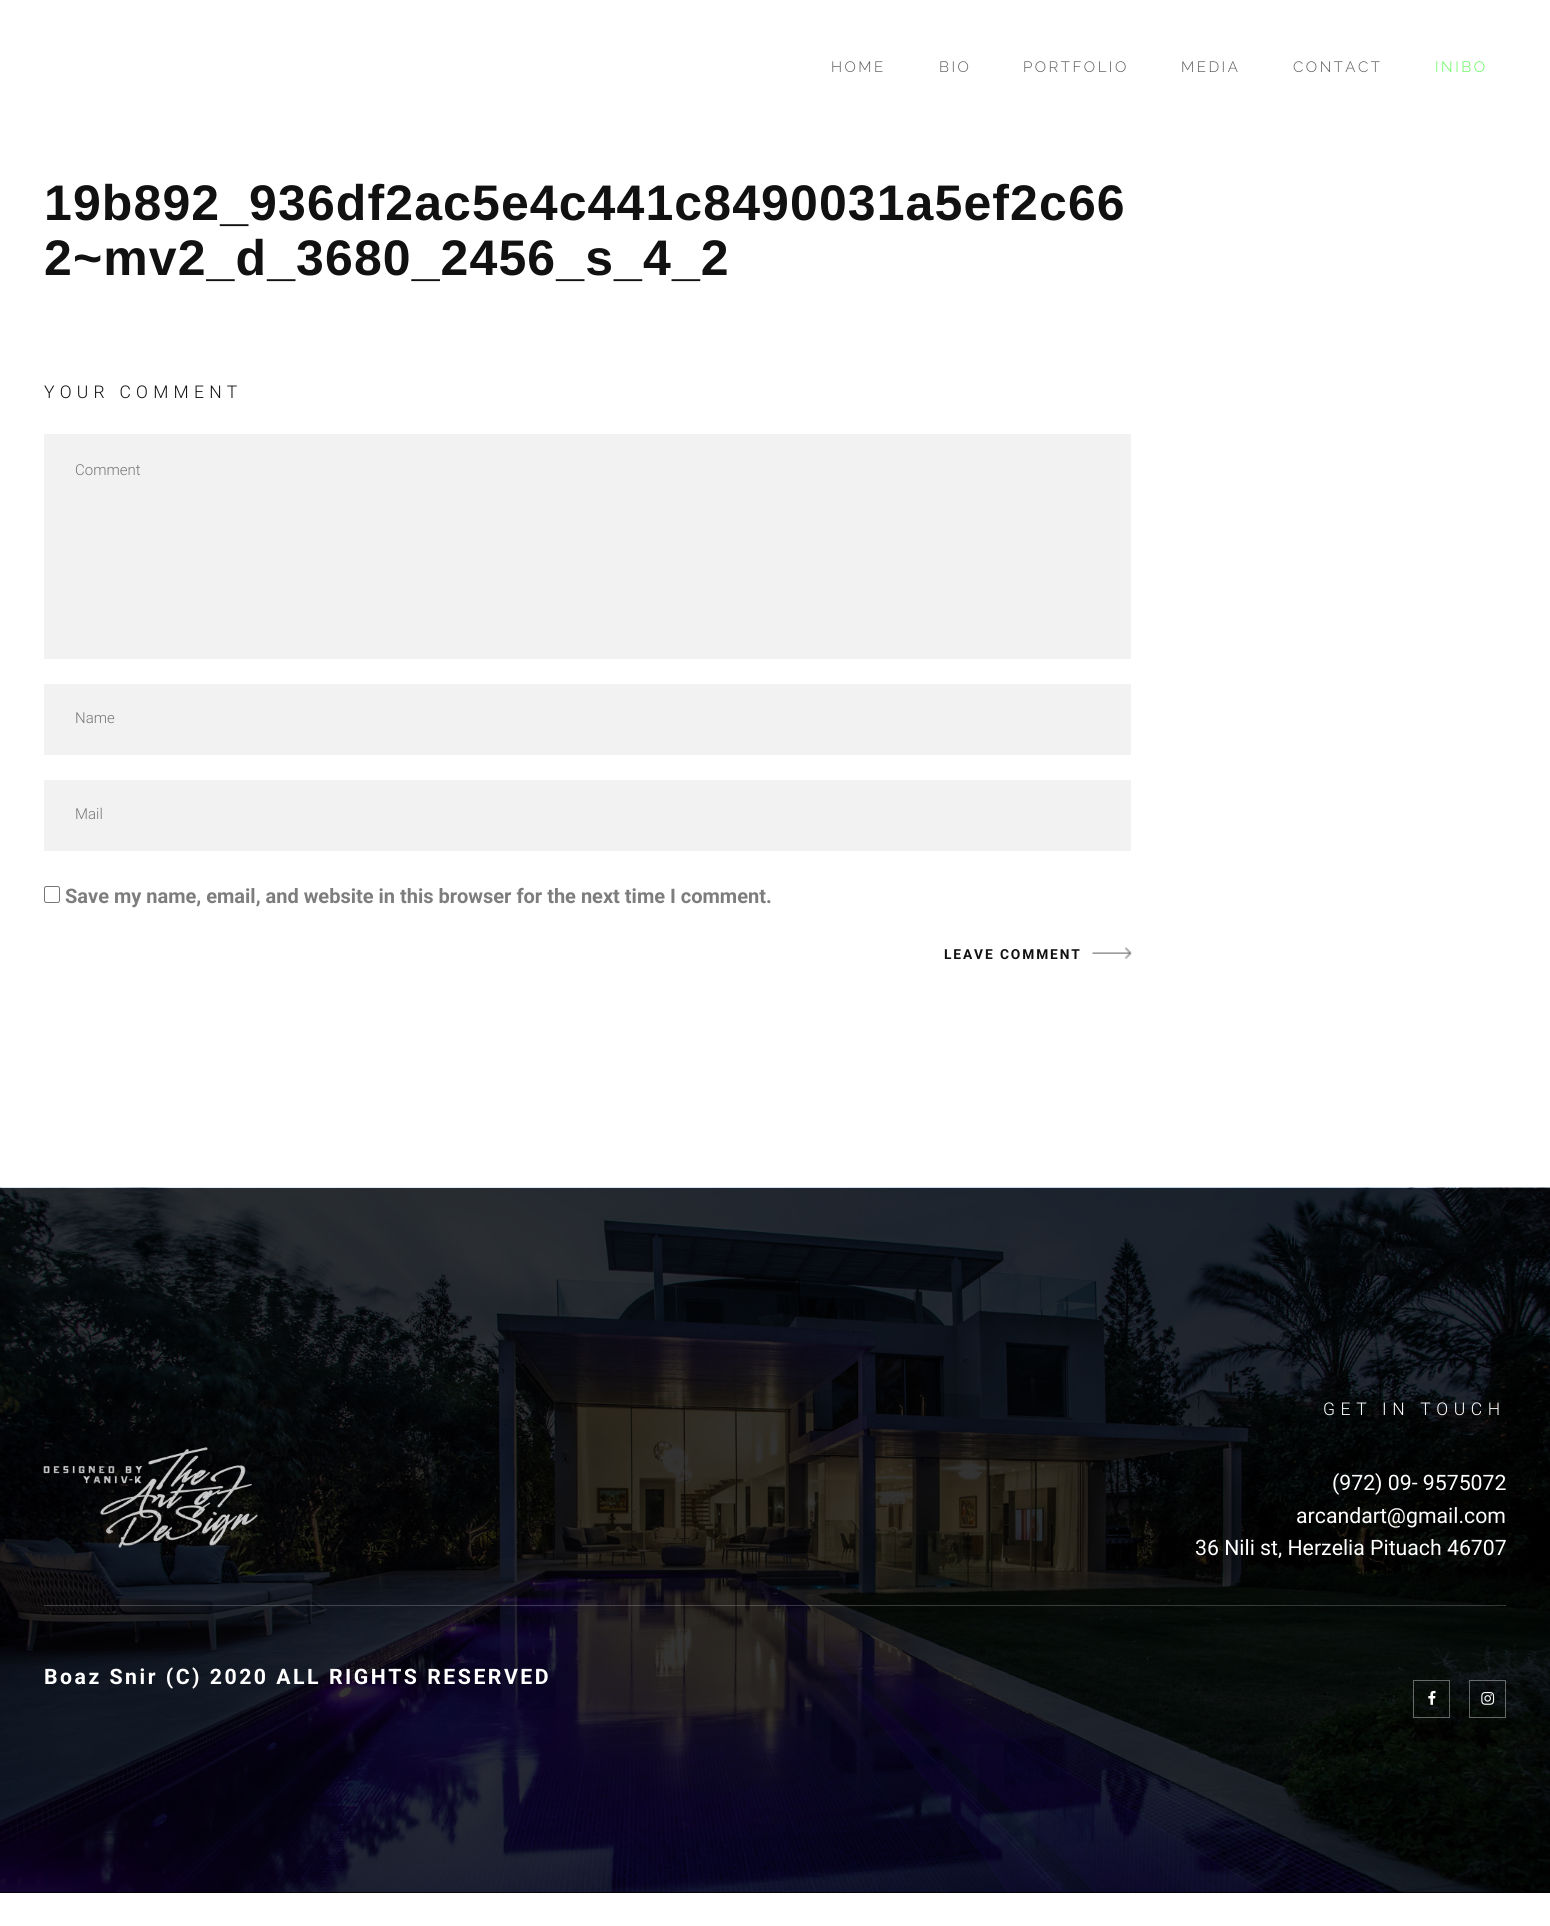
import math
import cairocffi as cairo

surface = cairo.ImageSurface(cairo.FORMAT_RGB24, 1550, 1926)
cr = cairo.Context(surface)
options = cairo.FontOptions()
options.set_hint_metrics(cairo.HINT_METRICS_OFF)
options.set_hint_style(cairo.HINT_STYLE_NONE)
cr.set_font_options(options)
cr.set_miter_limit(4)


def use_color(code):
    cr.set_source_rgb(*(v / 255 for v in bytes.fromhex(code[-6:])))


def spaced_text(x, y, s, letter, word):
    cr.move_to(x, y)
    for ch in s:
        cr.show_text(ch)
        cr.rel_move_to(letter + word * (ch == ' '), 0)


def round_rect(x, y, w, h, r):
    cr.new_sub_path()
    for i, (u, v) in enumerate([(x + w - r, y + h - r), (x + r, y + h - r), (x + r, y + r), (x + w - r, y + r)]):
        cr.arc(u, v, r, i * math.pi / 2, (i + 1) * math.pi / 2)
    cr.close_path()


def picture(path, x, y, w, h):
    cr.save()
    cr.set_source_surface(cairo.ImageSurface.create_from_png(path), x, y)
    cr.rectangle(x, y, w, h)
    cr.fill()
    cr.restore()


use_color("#ffffff")
cr.paint()
cr.select_font_face("Raleway Thin")
cr.set_font_size(15)
use_color("#585858")
spaced_text(831, 72, "HOME", 2.5, 0)
spaced_text(939, 72, "BIO", 2.5, 0)
spaced_text(1023, 72, "PORTFOLIO", 2.5, 0)
spaced_text(1181, 72, "MEDIA", 2.5, 0)
spaced_text(1293, 72, "CONTACT", 2.5, 0)
use_color("#5bf854")
spaced_text(1435, 72, "INIBO", 2.5, 0)
cr.select_font_face("Liberation Sans", cairo.FONT_SLANT_NORMAL, cairo.FONT_WEIGHT_BOLD)
cr.set_font_size(50)
use_color("#111111")
spaced_text(44, 220, "19b892_936df2ac5e4c441c8490031a5ef2c66", 1.1, 0)
spaced_text(44, 275, "2~mv2_d_3680_2456_s_4_2", 1.1, 0)
cr.select_font_face("Roboto Light")
cr.set_font_size(17.5)
spaced_text(44, 398, "YOUR COMMENT", 5.25, 0)
use_color("#f2f2f2")
cr.rectangle(44, 434, 1087, 225)
cr.fill()
cr.set_font_size(15)
use_color("#757575")
cr.move_to(75, 475)
cr.show_text("Comment")
use_color("#f2f2f2")
cr.rectangle(44, 684, 1087, 71)
cr.fill()
use_color("#757575")
cr.move_to(75, 723)
cr.show_text("Name")
use_color("#f2f2f2")
cr.rectangle(44, 780, 1087, 71)
cr.fill()
use_color("#757575")
cr.move_to(75, 819)
cr.show_text("Mail")
round_rect(44.5, 886.5, 15, 16, 2)
use_color("#767676")
cr.set_line_width(1)
cr.stroke()
cr.select_font_face("Roboto", cairo.FONT_SLANT_NORMAL, cairo.FONT_WEIGHT_BOLD)
cr.set_font_size(20)
use_color("#7e7d7d")
cr.move_to(65, 903)
cr.show_text("Save my name, email, and website in this browser for the next time I comment.")
picture("img1.png", 1092, 947, 40, 12)
cr.set_font_size(13.75)
use_color("#111111")
spaced_text(944, 959, "LEAVE COMMENT", 1.9, 0)
use_color("#000000")
cr.rectangle(0, 1892, 1550, 1)
cr.fill()
picture("img2.png", 0, 1187, 1550, 706)
cr.set_source_rgba(1, 1, 1, 0.2)
cr.rectangle(44, 1605, 1462, 1)
cr.fill()
picture("img3.png", 43, 1447, 215, 101)
cr.select_font_face("Roboto Light")
cr.set_font_size(17.5)
use_color("#ffffff")
spaced_text(1323, 1415, "GET IN TOUCH", 5.6, 0)
cr.select_font_face("Roboto")
cr.set_font_size(21.25)
cr.move_to(1332, 1490)
cr.show_text("(972) 09- 9575072")
cr.move_to(1296, 1523)
cr.show_text("arcandart@gmail.com")
cr.move_to(1195, 1555)
cr.show_text("36 Nili st, Herzelia Pituach 46707")
cr.select_font_face("Roboto", cairo.FONT_SLANT_NORMAL, cairo.FONT_WEIGHT_BOLD)
spaced_text(44, 1684, "Boaz Snir (C) 2020 ALL RIGHTS RESERVED", 2.5, 0)
cr.rectangle(1413.5, 1680.5, 36, 37)
cr.set_source_rgba(0.949, 0.949, 0.949, 0.4)
cr.stroke()
picture("img4.png", 1428, 1690, 8, 15)
cr.rectangle(1469.5, 1680.5, 36, 37)
cr.stroke()
picture("img5.png", 1481, 1692, 14, 13)
surface.write_to_png("result.png")
